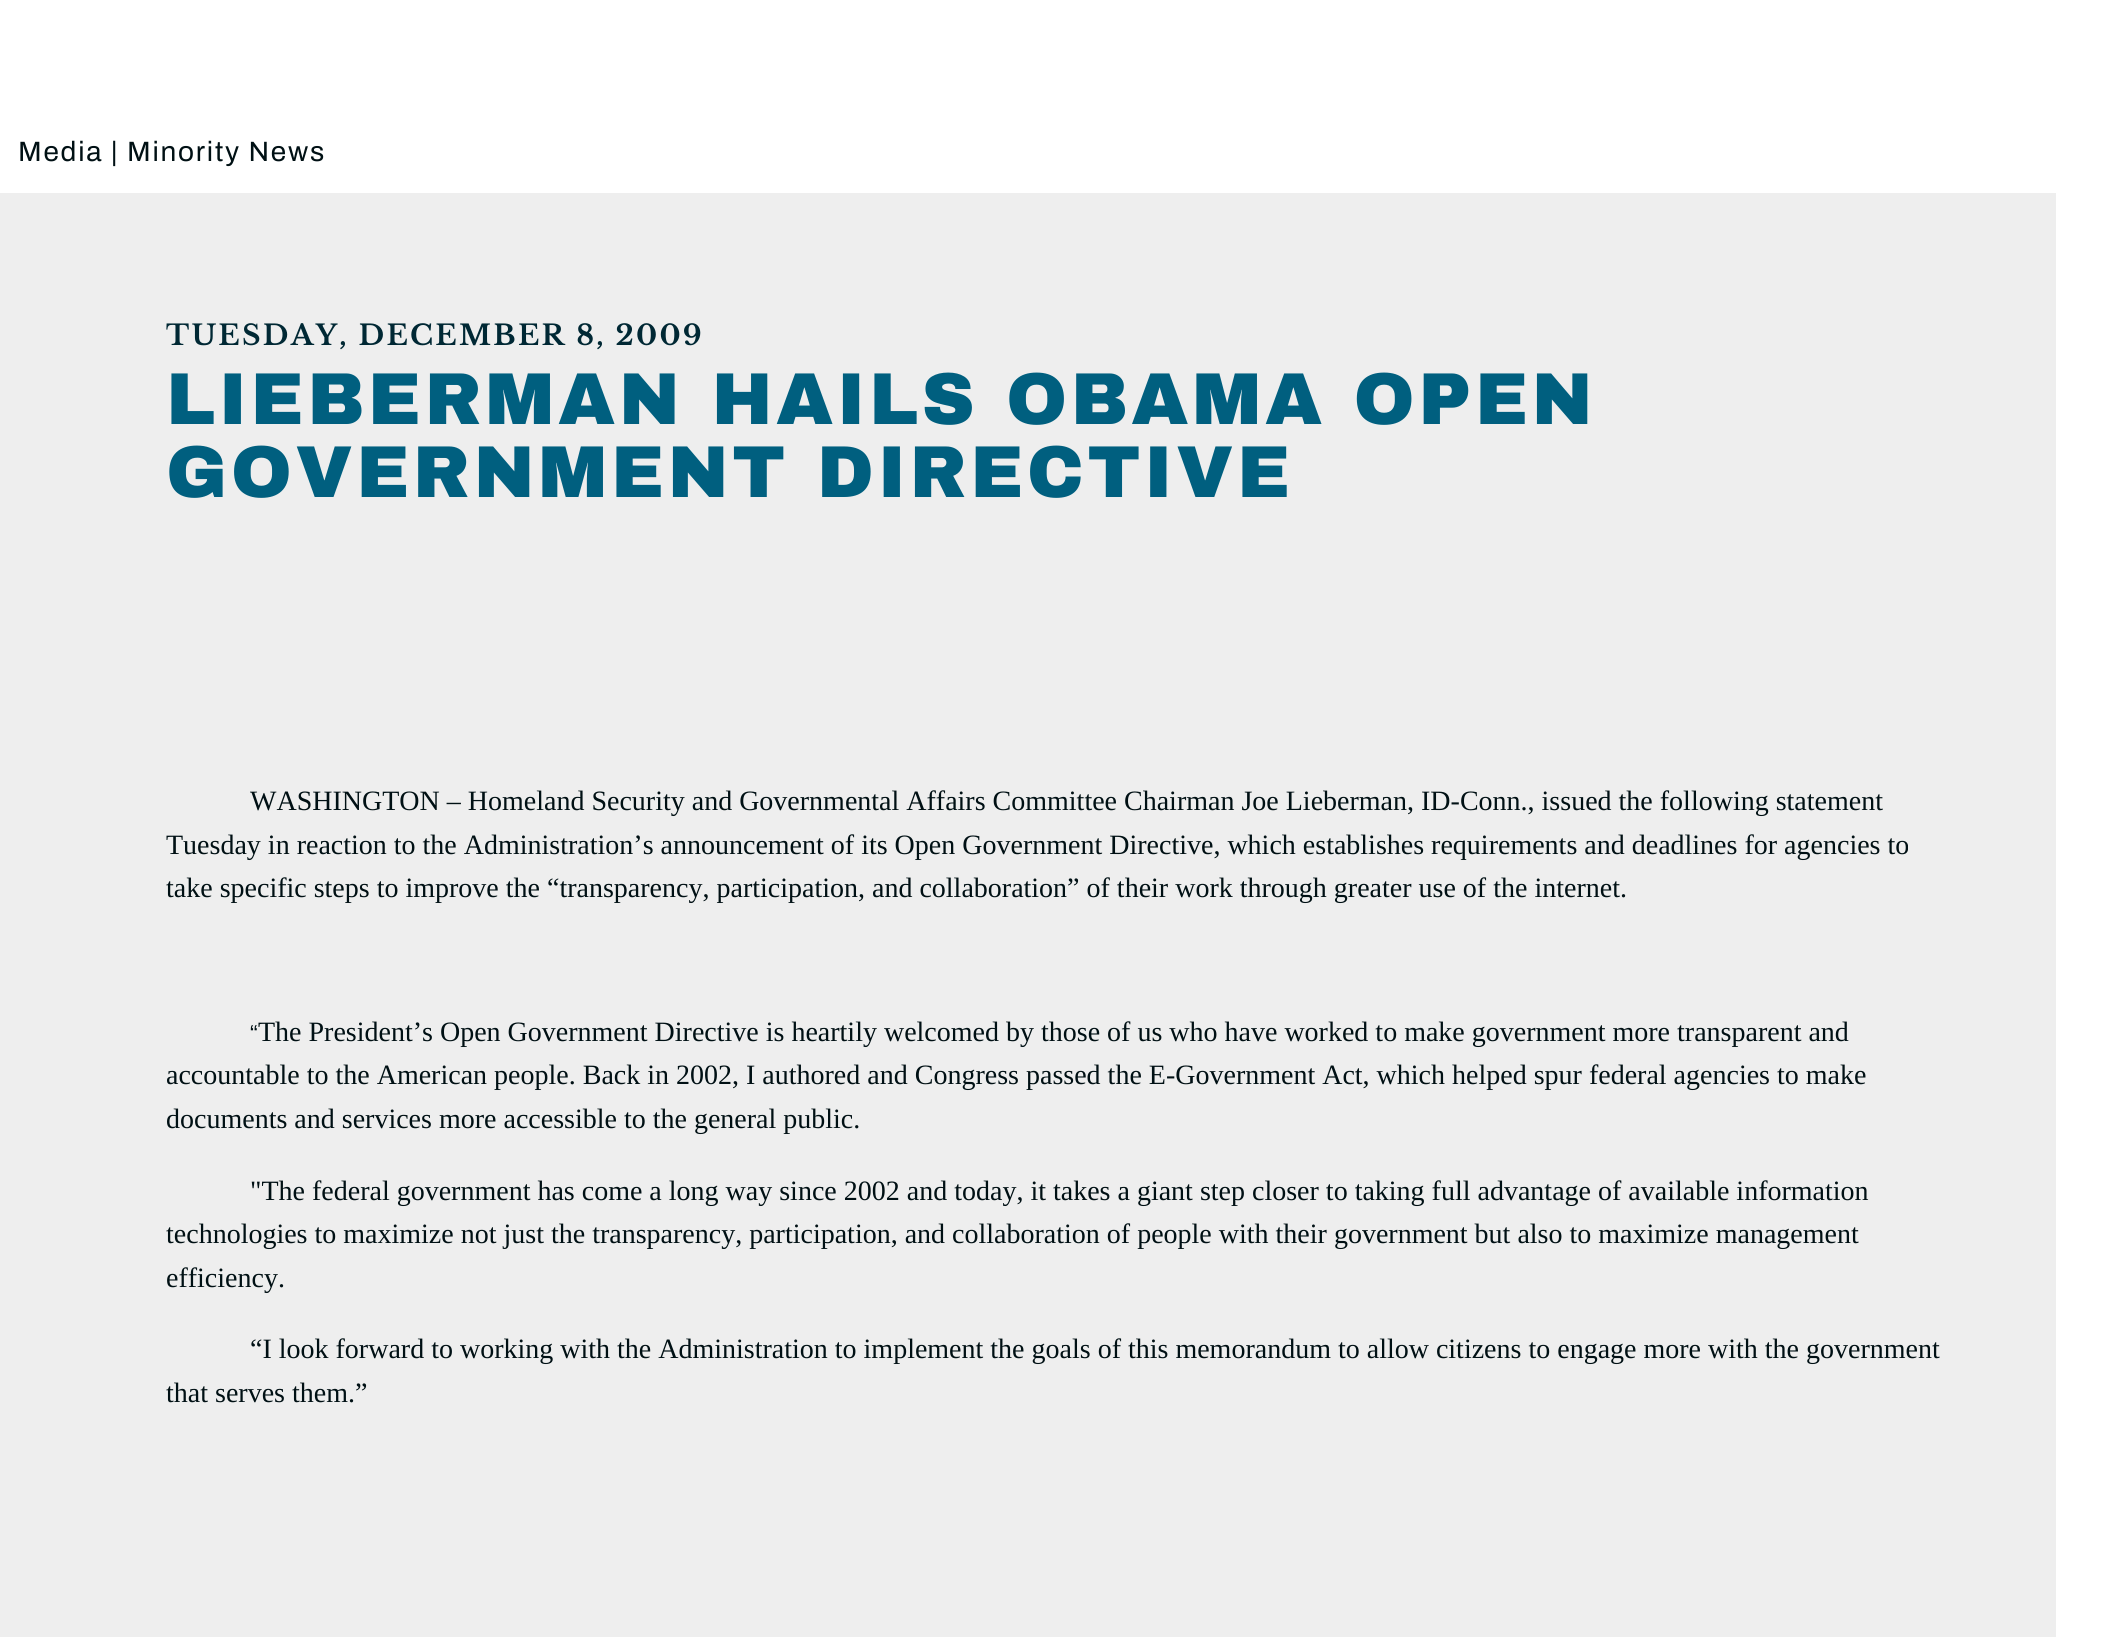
import math
import cairocffi as cairo

surface = cairo.ImageSurface(cairo.FORMAT_RGB24, 2119, 1637)
cr = cairo.Context(surface)
options = cairo.FontOptions()
options.set_hint_metrics(cairo.HINT_METRICS_OFF)
options.set_hint_style(cairo.HINT_STYLE_NONE)
cr.set_font_options(options)
cr.set_miter_limit(4)


def use_color(code):
    cr.set_source_rgb(*(v / 255 for v in bytes.fromhex(code[-6:])))


def spaced_text(x, y, s, letter, word):
    cr.move_to(x, y)
    for ch in s:
        cr.show_text(ch)
        cr.rel_move_to(letter + word * (ch == ' '), 0)


use_color("#ffffff")
cr.paint()
cr.select_font_face("Archivo")
cr.set_font_size(28)
use_color("#001014")
spaced_text(18, 161, "Media | Minority News", 1.75, 0)
use_color("#eeeeee")
cr.rectangle(0, 193, 2056, 1444)
cr.fill()
cr.select_font_face("Libre Baskerville", cairo.FONT_SLANT_NORMAL, cairo.FONT_WEIGHT_BOLD)
use_color("#002834")
spaced_text(166, 345, "TUESDAY, DECEMBER 8, 2009", 2.25, 0)
cr.select_font_face("Archivo Black Black")
cr.set_font_size(73.5)
use_color("#005f7f")
spaced_text(166, 424, "LIEBERMAN HAILS OBAMA OPEN", 3.5, 0)
spaced_text(166, 497, "GOVERNMENT DIRECTIVE", 3.5, 0)
cr.select_font_face("Liberation Serif")
cr.set_font_size(28)
use_color("#001014")
cr.move_to(250, 810)
cr.show_text("WASHINGTON – Homeland Security and Governmental Affairs Committee Chairman Joe Lieberman, ID-Conn., issued the following statement")
cr.move_to(166, 854)
cr.show_text("Tuesday in reaction to the Administration’s announcement of its Open Government Directive, which establishes requirements and deadlines for agencies to")
cr.move_to(166, 897)
cr.show_text("take specific steps to improve the “transparency, participation, and collaboration” of their work through greater use of the internet.")
cr.select_font_face("Liberation Sans")
cr.set_font_size(23)
cr.move_to(250, 1041)
cr.show_text("“")
cr.select_font_face("Liberation Serif")
cr.set_font_size(28)
cr.move_to(258, 1041)
cr.show_text("The President’s Open Government Directive is heartily welcomed by those of us who have worked to make government more transparent and")
cr.move_to(166, 1084)
cr.show_text("accountable to the American people. Back in 2002, I authored and Congress passed the E-Government Act, which helped spur federal agencies to make")
cr.move_to(166, 1128)
cr.show_text("documents and services more accessible to the general public.")
cr.move_to(250, 1200)
cr.show_text("\"The federal government has come a long way since 2002 and today, it takes a giant step closer to taking full advantage of available information")
cr.move_to(166, 1243)
cr.show_text("technologies to maximize not just the transparency, participation, and collaboration of people with their government but also to maximize management")
cr.move_to(166, 1287)
cr.show_text("efficiency.")
cr.move_to(250, 1358)
cr.show_text("“I look forward to working with the Administration to implement the goals of this memorandum to allow citizens to engage more with the government")
cr.move_to(166, 1402)
cr.show_text("that serves them.”")
surface.write_to_png("result.png")
